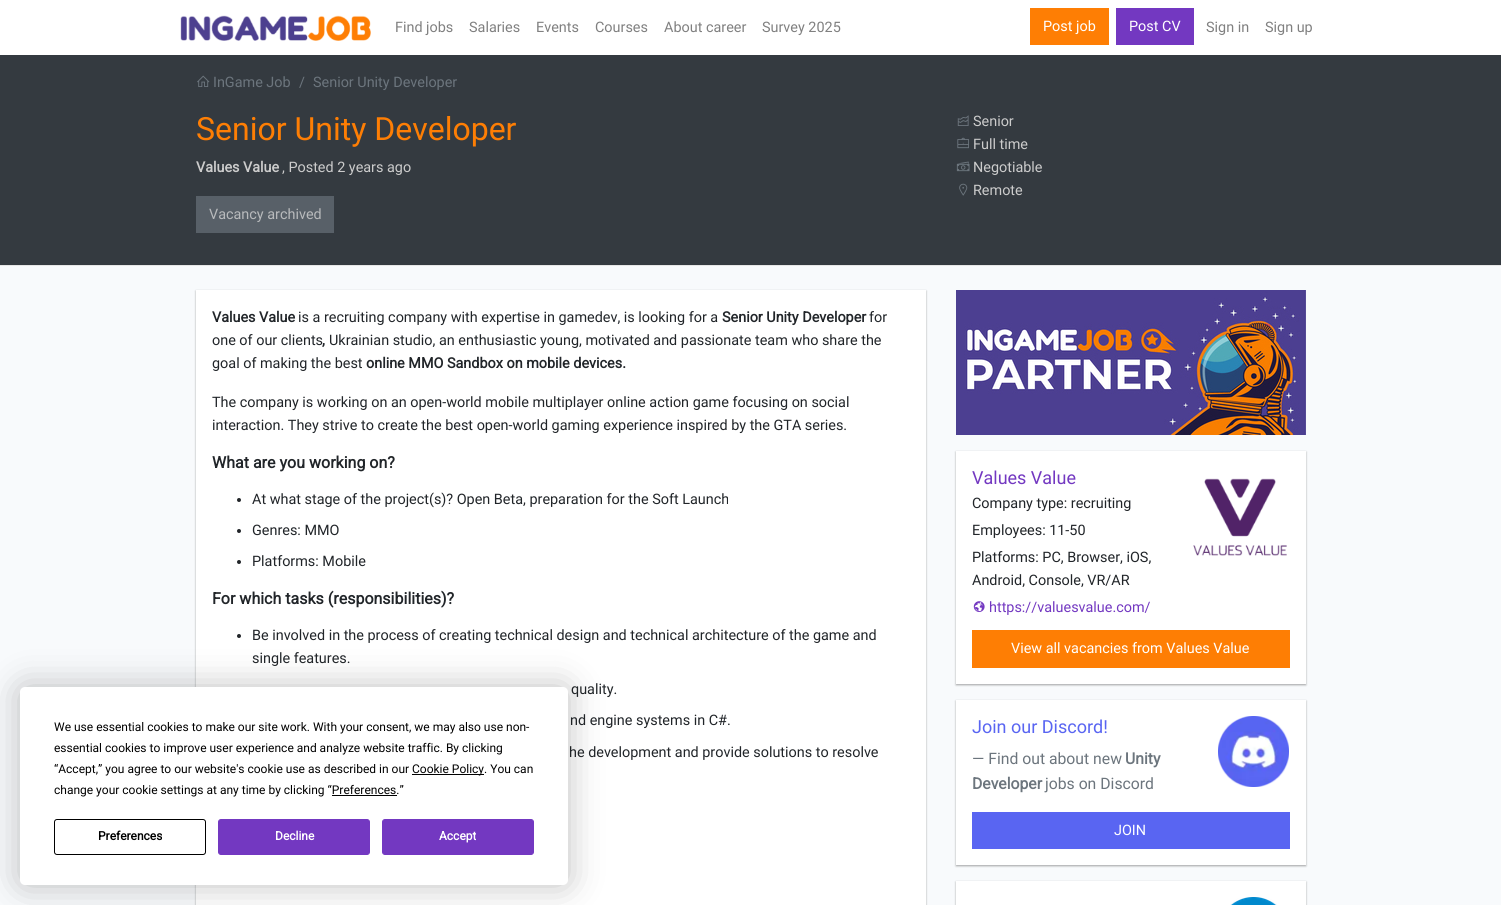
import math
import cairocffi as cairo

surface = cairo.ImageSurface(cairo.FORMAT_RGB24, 1501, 905)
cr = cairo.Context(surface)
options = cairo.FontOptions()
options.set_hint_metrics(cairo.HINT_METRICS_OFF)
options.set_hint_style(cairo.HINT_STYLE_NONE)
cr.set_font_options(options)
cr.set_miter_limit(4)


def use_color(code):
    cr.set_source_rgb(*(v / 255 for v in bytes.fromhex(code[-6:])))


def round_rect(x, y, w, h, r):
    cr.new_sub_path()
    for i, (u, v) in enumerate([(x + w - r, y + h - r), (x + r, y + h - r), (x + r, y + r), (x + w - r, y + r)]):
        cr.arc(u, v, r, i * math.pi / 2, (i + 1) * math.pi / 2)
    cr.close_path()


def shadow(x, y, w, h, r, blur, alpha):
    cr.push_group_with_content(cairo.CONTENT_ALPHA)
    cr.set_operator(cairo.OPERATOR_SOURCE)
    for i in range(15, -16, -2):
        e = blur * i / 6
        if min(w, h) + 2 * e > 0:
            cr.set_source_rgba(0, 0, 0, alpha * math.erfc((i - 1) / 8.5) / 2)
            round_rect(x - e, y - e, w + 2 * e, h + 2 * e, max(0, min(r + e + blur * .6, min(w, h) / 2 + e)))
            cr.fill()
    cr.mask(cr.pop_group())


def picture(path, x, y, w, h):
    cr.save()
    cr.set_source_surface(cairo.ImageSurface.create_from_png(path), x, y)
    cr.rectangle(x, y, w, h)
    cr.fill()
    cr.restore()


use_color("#f8fafc")
cr.paint()
use_color("#ffffff")
cr.rectangle(0, 0, 1501, 55)
cr.fill()
picture("img1.png", 180, 15, 191, 26)
cr.select_font_face("Roboto")
cr.set_font_size(14.4)
use_color("#808080")
cr.move_to(395, 32)
cr.show_text("Find jobs")
cr.move_to(469, 32)
cr.show_text("Salaries")
cr.move_to(536, 32)
cr.show_text("Events")
cr.move_to(595, 32)
cr.show_text("Сourses")
cr.move_to(664, 32)
cr.show_text("About career")
cr.move_to(762, 32)
cr.show_text("Survey 2025")
use_color("#fe7e04")
cr.rectangle(1030, 8, 79, 37)
cr.fill()
use_color("#ffffff")
cr.move_to(1043, 31)
cr.show_text("Post job")
use_color("#7338c1")
cr.rectangle(1116, 8, 78, 37)
cr.fill()
use_color("#ffffff")
cr.move_to(1129, 31)
cr.show_text("Post CV")
use_color("#808080")
cr.move_to(1206, 32)
cr.show_text("Sign in")
cr.move_to(1265, 32)
cr.show_text("Sign up")
use_color("#343a40")
cr.rectangle(0, 55, 1501, 210)
cr.fill()
use_color("#e6e6e6")
cr.rectangle(0, 265, 1501, 1)
cr.fill()
picture("img2.png", 197, 75, 13, 12)
use_color("#6c757d")
cr.move_to(213, 87)
cr.show_text("InGame Job")
cr.move_to(299, 87)
cr.show_text("/")
cr.move_to(313, 87)
cr.show_text("Senior Unity Developer")
cr.set_font_size(32)
use_color("#fe7e04")
cr.move_to(196, 140)
cr.show_text("Senior Unity Developer")
cr.select_font_face("Roboto", cairo.FONT_SLANT_NORMAL, cairo.FONT_WEIGHT_BOLD)
cr.set_font_size(14.4)
use_color("#cccccc")
cr.move_to(196, 172)
cr.show_text("Values Value")
cr.select_font_face("Roboto")
cr.move_to(282, 172)
cr.show_text(", Posted 2 years ago")
use_color("#586068")
cr.rectangle(196, 196, 138, 37)
cr.fill()
use_color("#b8babc")
cr.move_to(209, 219)
cr.show_text("Vacancy archived")
picture("img3.png", 957, 115, 12, 11)
use_color("#cccccc")
cr.move_to(973, 126)
cr.show_text("Senior")
picture("img4.png", 957, 137, 12, 12)
cr.move_to(973, 149)
cr.show_text("Full time")
picture("img5.png", 956, 161, 14, 11)
cr.move_to(973, 172)
cr.show_text("Negotiable")
picture("img6.png", 959, 183, 9, 13)
cr.move_to(973, 195)
cr.show_text("Remote")
use_color("#000000")
shadow(196, 291, 730, 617, 0, 1, 0.35)
use_color("#ffffff")
cr.rectangle(196, 290, 730, 615)
cr.fill()
cr.select_font_face("Roboto", cairo.FONT_SLANT_NORMAL, cairo.FONT_WEIGHT_BOLD)
use_color("#212529")
cr.move_to(212, 322)
cr.show_text("Values Value")
cr.select_font_face("Roboto")
cr.move_to(298, 322)
cr.show_text("is a recruiting company with expertise in gamedev, is looking for a")
cr.select_font_face("Roboto", cairo.FONT_SLANT_NORMAL, cairo.FONT_WEIGHT_BOLD)
cr.move_to(722, 322)
cr.show_text("Senior Unity Developer")
cr.select_font_face("Roboto")
cr.move_to(869, 322)
cr.show_text("for")
cr.move_to(212, 345)
cr.show_text("one of our clients")
cr.select_font_face("Roboto", cairo.FONT_SLANT_NORMAL, cairo.FONT_WEIGHT_BOLD)
cr.move_to(322, 345)
cr.show_text(",")
cr.select_font_face("Roboto")
cr.move_to(329, 345)
cr.show_text("Ukrainian studio, an enthusiastic young, motivated and passionate team who share the")
cr.move_to(212, 368)
cr.show_text("goal of making the best")
cr.select_font_face("Roboto", cairo.FONT_SLANT_NORMAL, cairo.FONT_WEIGHT_BOLD)
cr.move_to(366, 368)
cr.show_text("online MMO Sandbox on mobile devices.")
cr.select_font_face("Roboto")
cr.move_to(212, 407)
cr.show_text("The company is working on an open-world mobile multiplayer online action game focusing on social")
cr.move_to(212, 430)
cr.show_text("interaction. They strive to create the best open-world gaming experience inspired by the GTA series.")
cr.select_font_face("Roboto", cairo.FONT_SLANT_NORMAL, cairo.FONT_WEIGHT_BOLD)
cr.set_font_size(16)
cr.move_to(212, 468)
cr.show_text("What are you working on?")
cr.new_path()
cr.arc(239, 500, 2, 0, 2 * math.pi)
cr.fill()
cr.select_font_face("Roboto")
cr.set_font_size(14.4)
cr.move_to(252, 504)
cr.show_text("At what stage of the project(s)? Open Beta, preparation for the Soft Launch")
cr.new_path()
cr.arc(239, 531, 2, 0, 2 * math.pi)
cr.fill()
cr.move_to(252, 535)
cr.show_text("Genres: MMO")
cr.new_path()
cr.arc(239, 562, 2, 0, 2 * math.pi)
cr.fill()
cr.move_to(252, 566)
cr.show_text("Platforms: Mobile")
cr.select_font_face("Roboto", cairo.FONT_SLANT_NORMAL, cairo.FONT_WEIGHT_BOLD)
cr.set_font_size(16)
cr.move_to(212, 604)
cr.show_text("For which tasks (responsibilities)?")
cr.new_path()
cr.arc(239, 636, 2, 0, 2 * math.pi)
cr.fill()
cr.select_font_face("Roboto")
cr.set_font_size(14.4)
cr.move_to(252, 640)
cr.show_text("Be involved in the process of creating technical design and technical architecture of the game and")
cr.move_to(252, 663)
cr.show_text("single features.")
cr.move_to(571, 694)
cr.show_text("quality.")
cr.move_to(570, 725)
cr.show_text("nd engine systems in C#.")
cr.move_to(569, 757)
cr.show_text("he development and provide solutions to resolve")
picture("img7.png", 956, 290, 350, 145)
use_color("#000000")
shadow(956, 452, 350, 233, 0, 1, 0.35)
use_color("#ffffff")
cr.rectangle(956, 451, 350, 233)
cr.fill()
cr.set_font_size(18)
use_color("#7338c1")
cr.move_to(972, 484)
cr.show_text("Values Value")
picture("img8.png", 1193, 478, 94, 78)
cr.set_font_size(14.4)
use_color("#212529")
cr.move_to(972, 508)
cr.show_text("Company type: recruiting")
cr.move_to(972, 535)
cr.show_text("Employees: 11-50")
cr.move_to(972, 562)
cr.show_text("Platforms: PC, Browser, iOS,")
cr.move_to(972, 585)
cr.show_text("Android, Console, VR/AR")
picture("img9.png", 973, 601, 12, 11)
use_color("#7338c1")
cr.move_to(989, 612)
cr.show_text("https://valuesvalue.com/")
use_color("#fe7e04")
cr.rectangle(972, 630, 318, 38)
cr.fill()
use_color("#ffffff")
cr.move_to(1011, 653)
cr.show_text("View all vacancies from Values Value")
use_color("#000000")
shadow(956, 701, 350, 165, 0, 1, 0.35)
use_color("#ffffff")
cr.rectangle(956, 700, 350, 165)
cr.fill()
cr.set_font_size(18)
use_color("#5965f2")
cr.move_to(972, 733)
cr.show_text("Join our Discord!")
cr.set_font_size(15.75)
use_color("#6c757d")
cr.move_to(972, 764)
cr.show_text("— Find out about new")
cr.select_font_face("Roboto", cairo.FONT_SLANT_NORMAL, cairo.FONT_WEIGHT_BOLD)
cr.move_to(1125, 764)
cr.show_text("Unity")
cr.move_to(972, 789)
cr.show_text("Developer")
cr.select_font_face("Roboto")
cr.move_to(1045, 789)
cr.show_text("jobs on Discord")
picture("img10.png", 1218, 716, 71, 71)
use_color("#5965f2")
cr.rectangle(972, 812, 318, 37)
cr.fill()
cr.set_font_size(14.4)
use_color("#ffffff")
cr.move_to(1114, 835)
cr.show_text("JOIN")
use_color("#000000")
shadow(956, 882, 350, 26, 0, 1, 0.35)
use_color("#ffffff")
cr.rectangle(956, 881, 350, 24)
cr.fill()
picture("img11.png", 1230, 897, 47, 8)
use_color("#000000")
shadow(20, 687, 548, 198, 5, 17.5, 0.25)
use_color("#ffffff")
round_rect(20, 687, 548, 198, 5)
cr.fill()
cr.set_font_size(12)
use_color("#000000")
cr.move_to(54, 731)
cr.show_text("We use essential cookies to make our site work. With your consent, we may also use non-")
cr.move_to(54, 752)
cr.show_text("essential cookies to improve user experience and analyze website traffic. By clicking")
cr.move_to(54, 773)
cr.show_text("“Accept,” you agree to our website's cookie use as described in our")
cr.rectangle(412, 774, 72, 1)
cr.fill()
cr.move_to(412, 773)
cr.show_text("Cookie Policy. You can")
cr.move_to(54, 794)
cr.show_text("change your cookie settings at any time by clicking “Preferences.”")
cr.rectangle(332, 795, 65, 1)
cr.fill()
round_rect(54.5, 819.5, 151, 35, 2.5)
cr.set_line_width(1)
cr.stroke()
cr.select_font_face("Roboto", cairo.FONT_SLANT_NORMAL, cairo.FONT_WEIGHT_BOLD)
cr.move_to(98, 840)
cr.show_text("Preferences")
use_color("#7338c1")
round_rect(218.5, 819.5, 151, 35, 2.5)
cr.fill_preserve()
cr.stroke()
use_color("#ffffff")
cr.move_to(275, 840)
cr.show_text("Decline")
use_color("#7338c1")
round_rect(382.5, 819.5, 151, 35, 2.5)
cr.fill_preserve()
cr.stroke()
use_color("#ffffff")
cr.move_to(439, 840)
cr.show_text("Accept")
surface.write_to_png("result.png")
